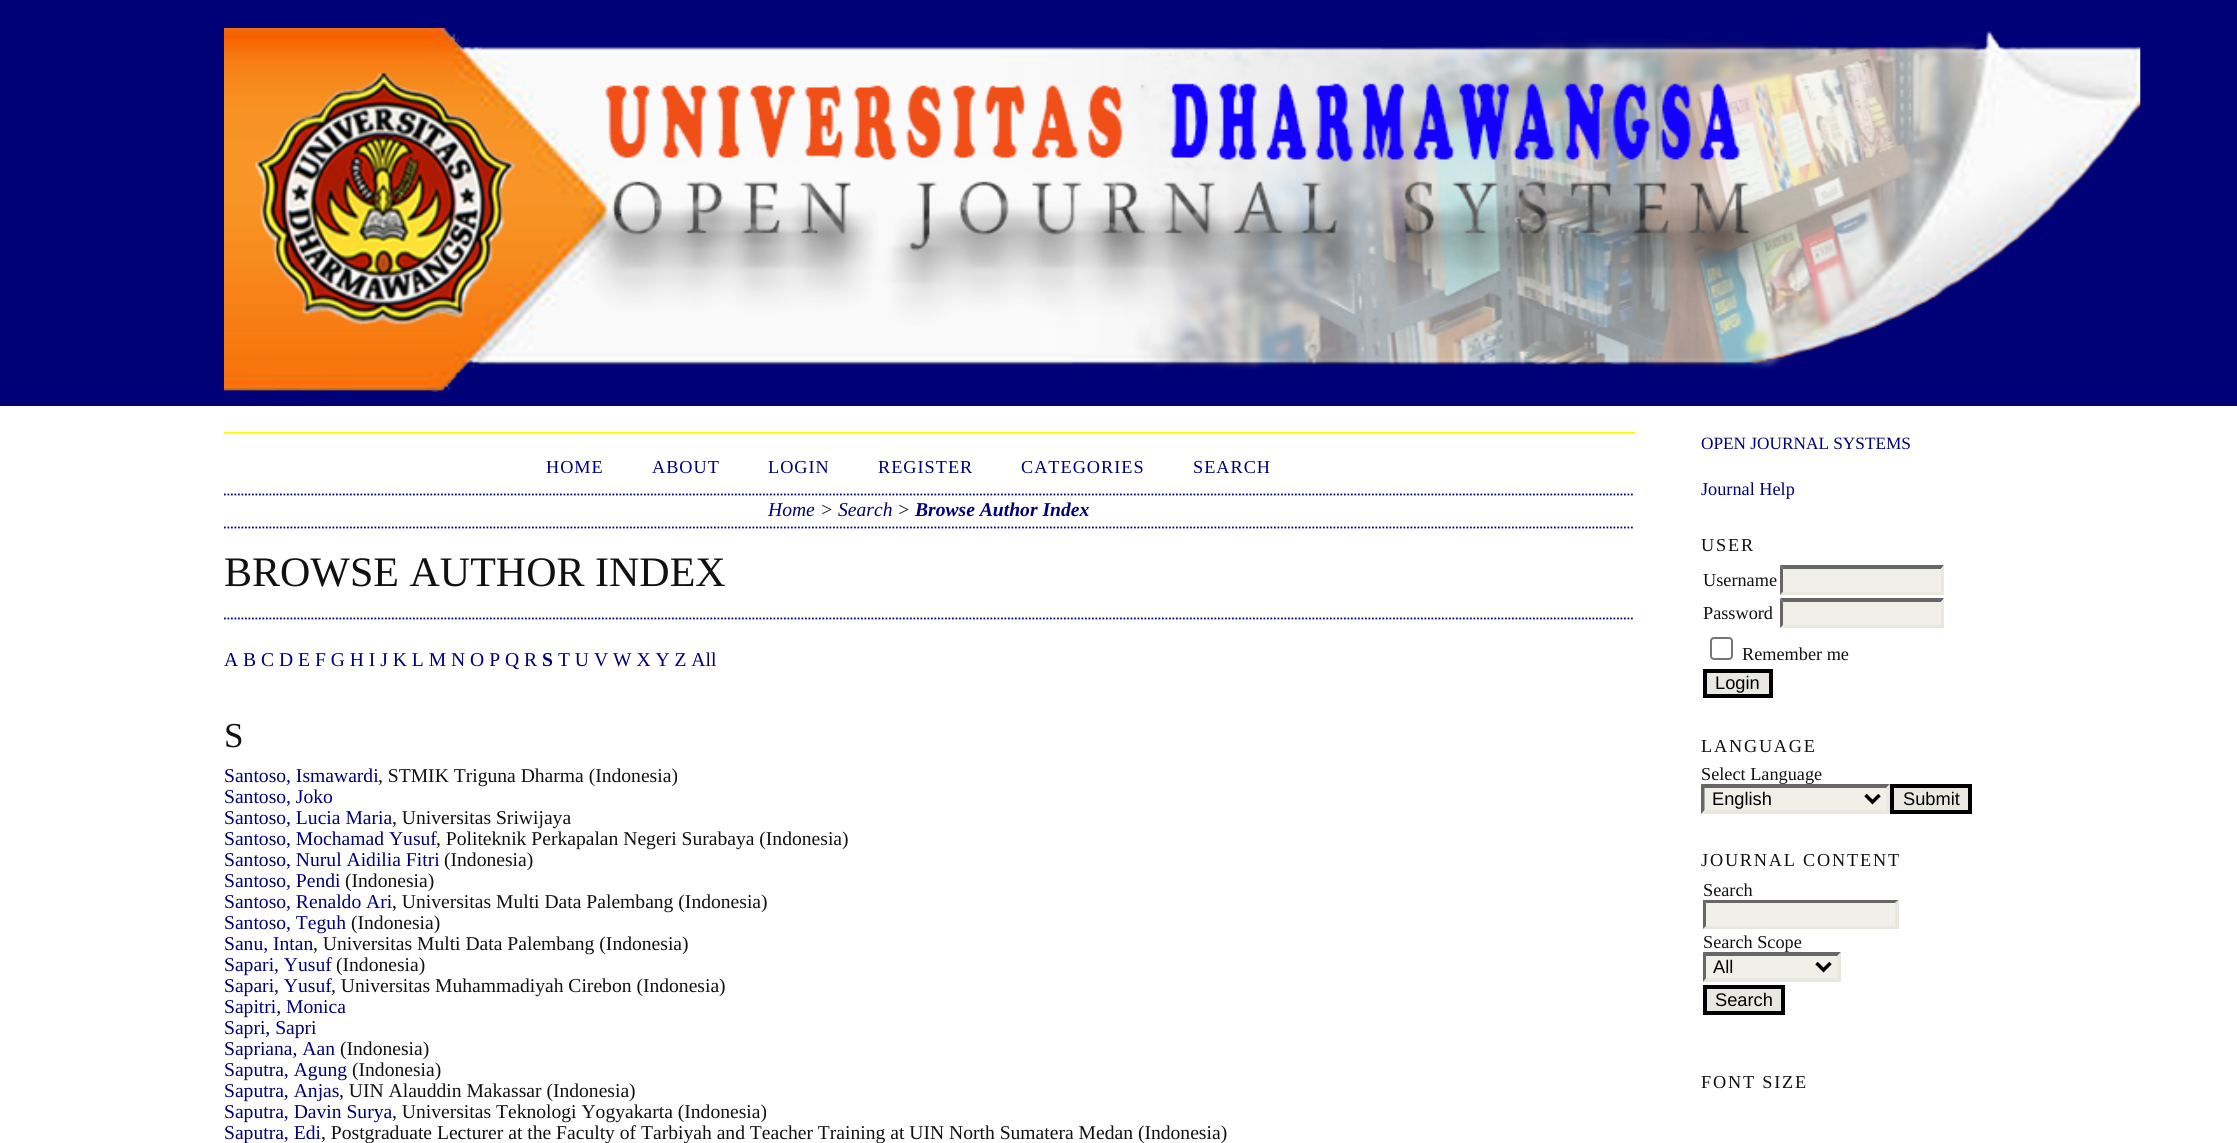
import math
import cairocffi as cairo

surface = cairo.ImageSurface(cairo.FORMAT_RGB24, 2237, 1143)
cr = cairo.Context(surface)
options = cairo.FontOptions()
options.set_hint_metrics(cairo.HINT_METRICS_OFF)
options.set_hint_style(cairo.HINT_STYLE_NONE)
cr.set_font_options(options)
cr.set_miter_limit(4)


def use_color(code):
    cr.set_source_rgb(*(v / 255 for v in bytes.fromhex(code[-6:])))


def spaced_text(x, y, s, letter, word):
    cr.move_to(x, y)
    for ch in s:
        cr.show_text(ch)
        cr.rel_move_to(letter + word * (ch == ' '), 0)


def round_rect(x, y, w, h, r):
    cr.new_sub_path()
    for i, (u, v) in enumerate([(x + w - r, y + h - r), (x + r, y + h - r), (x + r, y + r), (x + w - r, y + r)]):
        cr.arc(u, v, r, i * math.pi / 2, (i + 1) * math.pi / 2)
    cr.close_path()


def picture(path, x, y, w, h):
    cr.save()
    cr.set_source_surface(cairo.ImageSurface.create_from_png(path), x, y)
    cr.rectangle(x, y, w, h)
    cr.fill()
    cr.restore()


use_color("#ffffff")
cr.paint()
use_color("#000077")
cr.rectangle(0, 0, 2237, 406)
cr.fill()
picture("img1.png", 224, 28, 1917, 364)
use_color("#ffff00")
cr.rectangle(224, 432, 1411, 2)
cr.fill()
cr.new_path()
cr.move_to(224, 494.5)
cr.line_to(1634.5, 494.5)
use_color("#000077")
cr.set_line_width(1.8)
cr.set_dash([1.75, 1.75])
cr.stroke()
cr.select_font_face("Liberation Serif")
cr.set_font_size(18.25)
spaced_text(546, 473, "HOME", 1, 0)
spaced_text(652, 473, "ABOUT", 1, 0)
spaced_text(768, 473, "LOGIN", 1, 0)
spaced_text(878, 473, "REGISTER", 1, 0)
spaced_text(1021, 473, "CATEGORIES", 1, 0)
spaced_text(1193, 473, "SEARCH", 1, 0)
cr.new_path()
cr.move_to(224, 527.5)
cr.line_to(1634.5, 527.5)
cr.stroke()
cr.select_font_face("Liberation Serif", cairo.FONT_SLANT_ITALIC)
cr.set_font_size(19.6)
cr.move_to(768, 516)
cr.show_text("Home")
use_color("#111111")
cr.move_to(820, 516)
cr.show_text(">")
use_color("#000077")
cr.move_to(838, 516)
cr.show_text("Search")
use_color("#111111")
cr.move_to(897, 516)
cr.show_text(">")
cr.select_font_face("Liberation Serif", cairo.FONT_SLANT_ITALIC, cairo.FONT_WEIGHT_BOLD)
use_color("#000077")
cr.move_to(915, 516)
cr.show_text("Browse Author Index")
cr.select_font_face("Liberation Serif")
cr.set_font_size(42)
use_color("#111111")
cr.move_to(224, 586)
cr.show_text("BROWSE AUTHOR INDEX")
cr.new_path()
cr.move_to(224, 618.5)
cr.line_to(1634.5, 618.5)
use_color("#000077")
cr.stroke()
cr.set_font_size(19.6)
cr.move_to(224, 666)
cr.show_text("A B C D E F G H I J K L M N O P Q R")
cr.select_font_face("Liberation Serif", cairo.FONT_SLANT_NORMAL, cairo.FONT_WEIGHT_BOLD)
cr.move_to(542, 666)
cr.show_text("S")
cr.select_font_face("Liberation Serif")
cr.move_to(558, 666)
cr.show_text("T U V W X Y Z All")
cr.set_font_size(35)
use_color("#111111")
cr.move_to(224, 747)
cr.show_text("S")
cr.set_font_size(19.6)
use_color("#000077")
cr.move_to(224, 782)
cr.show_text("Santoso, Ismawardi")
use_color("#111111")
cr.move_to(378, 782)
cr.show_text(", STMIK Triguna Dharma (Indonesia)")
use_color("#000077")
cr.move_to(224, 803)
cr.show_text("Santoso, Joko")
cr.move_to(224, 824)
cr.show_text("Santoso, Lucia Maria")
use_color("#111111")
cr.move_to(392, 824)
cr.show_text(", Universitas Sriwijaya")
use_color("#000077")
cr.move_to(224, 845)
cr.show_text("Santoso, Mochamad Yusuf")
use_color("#111111")
cr.move_to(436, 845)
cr.show_text(", Politeknik Perkapalan Negeri Surabaya (Indonesia)")
use_color("#000077")
cr.move_to(224, 866)
cr.show_text("Santoso, Nurul Aidilia Fitri")
use_color("#111111")
cr.move_to(444, 866)
cr.show_text("(Indonesia)")
use_color("#000077")
cr.move_to(224, 887)
cr.show_text("Santoso, Pendi")
use_color("#111111")
cr.move_to(345, 887)
cr.show_text("(Indonesia)")
use_color("#000077")
cr.move_to(224, 908)
cr.show_text("Santoso, Renaldo Ari")
use_color("#111111")
cr.move_to(392, 908)
cr.show_text(", Universitas Multi Data Palembang (Indonesia)")
use_color("#000077")
cr.move_to(224, 929)
cr.show_text("Santoso, Teguh")
use_color("#111111")
cr.move_to(351, 929)
cr.show_text("(Indonesia)")
use_color("#000077")
cr.move_to(224, 950)
cr.show_text("Sanu, Intan")
use_color("#111111")
cr.move_to(313, 950)
cr.show_text(", Universitas Multi Data Palembang (Indonesia)")
use_color("#000077")
cr.move_to(224, 971)
cr.show_text("Sapari, Yusuf")
use_color("#111111")
cr.move_to(336, 971)
cr.show_text("(Indonesia)")
use_color("#000077")
cr.move_to(224, 992)
cr.show_text("Sapari, Yusuf")
use_color("#111111")
cr.move_to(331, 992)
cr.show_text(", Universitas Muhammadiyah Cirebon (Indonesia)")
use_color("#000077")
cr.move_to(224, 1013)
cr.show_text("Sapitri, Monica")
cr.move_to(224, 1034)
cr.show_text("Sapri, Sapri")
cr.move_to(224, 1055)
cr.show_text("Sapriana, Aan")
use_color("#111111")
cr.move_to(340, 1055)
cr.show_text("(Indonesia)")
use_color("#000077")
cr.move_to(224, 1076)
cr.show_text("Saputra, Agung")
use_color("#111111")
cr.move_to(352, 1076)
cr.show_text("(Indonesia)")
use_color("#000077")
cr.move_to(224, 1097)
cr.show_text("Saputra, Anjas")
use_color("#111111")
cr.move_to(339, 1097)
cr.show_text(", UIN Alauddin Makassar (Indonesia)")
use_color("#000077")
cr.move_to(224, 1118)
cr.show_text("Saputra, Davin Surya")
use_color("#111111")
cr.move_to(392, 1118)
cr.show_text(", Universitas Teknologi Yogyakarta (Indonesia)")
use_color("#000077")
cr.move_to(224, 1139)
cr.show_text("Saputra, Edi")
use_color("#111111")
cr.move_to(321, 1139)
cr.show_text(", Postgraduate Lecturer at the Faculty of Tarbiyah and Teacher Training at UIN North Sumatera Medan (Indonesia)")
cr.set_font_size(17.25)
use_color("#000077")
cr.move_to(1701, 449)
cr.show_text("OPEN JOURNAL SYSTEMS")
cr.set_font_size(18.25)
cr.move_to(1701, 495)
cr.show_text("Journal Help")
use_color("#111111")
spaced_text(1701, 551, "USER", 1.8, 0)
cr.move_to(1703, 586)
cr.show_text("Username")
use_color("#f0f0e8")
cr.rectangle(1780, 565, 164, 30)
cr.fill()
use_color("#666666")
cr.new_path()
cr.move_to(1780, 565)
cr.line_to(1944, 565)
cr.line_to(1941, 569)
cr.line_to(1783, 569)
cr.close_path()
cr.fill()
use_color("#e8e8e1")
cr.new_path()
cr.move_to(1944, 565)
cr.line_to(1944, 595)
cr.line_to(1941, 591.5)
cr.line_to(1941, 569)
cr.close_path()
cr.fill()
cr.new_path()
cr.move_to(1944, 595)
cr.line_to(1780, 595)
cr.line_to(1783, 592)
cr.line_to(1941, 592)
cr.close_path()
cr.fill()
use_color("#666666")
cr.new_path()
cr.move_to(1780, 595)
cr.line_to(1780, 565)
cr.line_to(1783, 569)
cr.line_to(1783, 591.5)
cr.close_path()
cr.fill()
use_color("#111111")
cr.move_to(1703, 619)
cr.show_text("Password")
use_color("#f0f0e8")
cr.rectangle(1780, 599, 164, 29)
cr.fill()
use_color("#666666")
cr.new_path()
cr.move_to(1780, 598)
cr.line_to(1944, 598)
cr.line_to(1941, 602)
cr.line_to(1783, 602)
cr.close_path()
cr.fill()
use_color("#e8e8e1")
cr.new_path()
cr.move_to(1944, 598.5)
cr.line_to(1944, 628)
cr.line_to(1941, 625)
cr.line_to(1941, 602)
cr.close_path()
cr.fill()
cr.new_path()
cr.move_to(1944, 628)
cr.line_to(1780, 628)
cr.line_to(1783, 625)
cr.line_to(1941, 625)
cr.close_path()
cr.fill()
use_color("#666666")
cr.new_path()
cr.move_to(1780, 628)
cr.line_to(1780, 598.5)
cr.line_to(1783, 602)
cr.line_to(1783, 625)
cr.close_path()
cr.fill()
round_rect(1711, 638, 21, 21, 3)
use_color("#767676")
cr.set_line_width(2)
cr.set_dash([])
cr.stroke()
use_color("#111111")
cr.move_to(1742, 660)
cr.show_text("Remember me")
use_color("#e8e8e1")
cr.rectangle(1705, 671, 66, 25)
cr.fill_preserve()
use_color("#000000")
cr.set_line_width(4)
cr.stroke()
cr.select_font_face("Liberation Sans")
cr.move_to(1715, 689)
cr.show_text("Login")
cr.select_font_face("Liberation Serif")
use_color("#111111")
spaced_text(1701, 752, "LANGUAGE", 1.8, 0)
cr.move_to(1701, 780)
cr.show_text("Select Language")
use_color("#f0f0e8")
cr.rectangle(1701, 784, 189, 30)
cr.fill()
use_color("#666666")
cr.new_path()
cr.move_to(1701, 784)
cr.line_to(1890, 784)
cr.line_to(1886, 788)
cr.line_to(1704, 788)
cr.close_path()
cr.fill()
use_color("#e8e8e1")
cr.new_path()
cr.move_to(1890, 784)
cr.line_to(1890, 814)
cr.line_to(1886.5, 810)
cr.line_to(1886.5, 787.5)
cr.close_path()
cr.fill()
cr.new_path()
cr.move_to(1890, 814)
cr.line_to(1701, 814)
cr.line_to(1704, 810)
cr.line_to(1886, 810)
cr.close_path()
cr.fill()
use_color("#666666")
cr.new_path()
cr.move_to(1701, 814)
cr.line_to(1701, 784)
cr.line_to(1704.5, 787.5)
cr.line_to(1704.5, 810)
cr.close_path()
cr.fill()
cr.new_path()
cr.move_to(1865.5, 795)
cr.line_to(1872.5, 802)
cr.line_to(1879.5, 795)
use_color("#000000")
cr.set_line_width(3.5)
cr.stroke()
cr.select_font_face("Liberation Sans")
cr.move_to(1712, 805)
cr.show_text("English")
use_color("#e8e8e1")
cr.rectangle(1892, 786, 78, 26)
cr.fill_preserve()
use_color("#000000")
cr.set_line_width(4)
cr.stroke()
cr.move_to(1903, 805)
cr.show_text("Submit")
cr.select_font_face("Liberation Serif")
use_color("#111111")
spaced_text(1701, 866, "JOURNAL CONTENT", 1.8, 0)
cr.move_to(1703, 896)
cr.show_text("Search")
use_color("#f0f0e8")
cr.rectangle(1703, 900, 196, 29)
cr.fill()
use_color("#666666")
cr.new_path()
cr.move_to(1703, 900)
cr.line_to(1899, 900)
cr.line_to(1895, 903)
cr.line_to(1706, 903)
cr.close_path()
cr.fill()
use_color("#e8e8e1")
cr.new_path()
cr.move_to(1899, 899.5)
cr.line_to(1899, 929)
cr.line_to(1895, 926)
cr.line_to(1895, 903)
cr.close_path()
cr.fill()
cr.new_path()
cr.move_to(1899, 929)
cr.line_to(1703, 929)
cr.line_to(1706, 926)
cr.line_to(1895, 926)
cr.close_path()
cr.fill()
use_color("#666666")
cr.new_path()
cr.move_to(1703, 929)
cr.line_to(1703, 899.5)
cr.line_to(1706, 903)
cr.line_to(1706, 926)
cr.close_path()
cr.fill()
use_color("#111111")
cr.move_to(1703, 948)
cr.show_text("Search Scope")
use_color("#f0f0e8")
cr.rectangle(1703, 952, 138, 30)
cr.fill()
use_color("#666666")
cr.new_path()
cr.move_to(1703, 952)
cr.line_to(1841, 952)
cr.line_to(1838, 956)
cr.line_to(1706, 956)
cr.close_path()
cr.fill()
use_color("#e8e8e1")
cr.new_path()
cr.move_to(1841, 952)
cr.line_to(1841, 982)
cr.line_to(1837.5, 978)
cr.line_to(1837.5, 955.5)
cr.close_path()
cr.fill()
cr.new_path()
cr.move_to(1841, 982)
cr.line_to(1703, 982)
cr.line_to(1706, 978)
cr.line_to(1838, 978)
cr.close_path()
cr.fill()
use_color("#666666")
cr.new_path()
cr.move_to(1703, 982)
cr.line_to(1703, 952)
cr.line_to(1706, 955.5)
cr.line_to(1706, 978)
cr.close_path()
cr.fill()
cr.new_path()
cr.move_to(1816.5, 963)
cr.line_to(1823.5, 970)
cr.line_to(1830.5, 963)
use_color("#000000")
cr.set_line_width(3.5)
cr.stroke()
cr.select_font_face("Liberation Sans")
cr.move_to(1713, 973)
cr.show_text("All")
use_color("#e8e8e1")
cr.rectangle(1705, 987, 78, 26)
cr.fill_preserve()
use_color("#000000")
cr.set_line_width(4)
cr.stroke()
cr.move_to(1715, 1006)
cr.show_text("Search")
cr.select_font_face("Liberation Serif")
use_color("#111111")
spaced_text(1701, 1088, "FONT SIZE", 1.8, 0)
surface.write_to_png("result.png")
